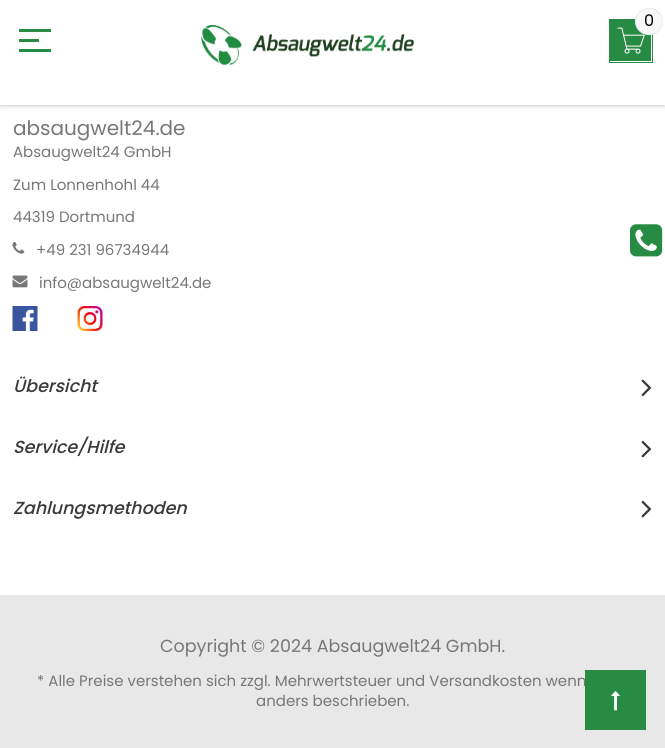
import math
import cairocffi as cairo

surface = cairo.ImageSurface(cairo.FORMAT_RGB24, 665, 748)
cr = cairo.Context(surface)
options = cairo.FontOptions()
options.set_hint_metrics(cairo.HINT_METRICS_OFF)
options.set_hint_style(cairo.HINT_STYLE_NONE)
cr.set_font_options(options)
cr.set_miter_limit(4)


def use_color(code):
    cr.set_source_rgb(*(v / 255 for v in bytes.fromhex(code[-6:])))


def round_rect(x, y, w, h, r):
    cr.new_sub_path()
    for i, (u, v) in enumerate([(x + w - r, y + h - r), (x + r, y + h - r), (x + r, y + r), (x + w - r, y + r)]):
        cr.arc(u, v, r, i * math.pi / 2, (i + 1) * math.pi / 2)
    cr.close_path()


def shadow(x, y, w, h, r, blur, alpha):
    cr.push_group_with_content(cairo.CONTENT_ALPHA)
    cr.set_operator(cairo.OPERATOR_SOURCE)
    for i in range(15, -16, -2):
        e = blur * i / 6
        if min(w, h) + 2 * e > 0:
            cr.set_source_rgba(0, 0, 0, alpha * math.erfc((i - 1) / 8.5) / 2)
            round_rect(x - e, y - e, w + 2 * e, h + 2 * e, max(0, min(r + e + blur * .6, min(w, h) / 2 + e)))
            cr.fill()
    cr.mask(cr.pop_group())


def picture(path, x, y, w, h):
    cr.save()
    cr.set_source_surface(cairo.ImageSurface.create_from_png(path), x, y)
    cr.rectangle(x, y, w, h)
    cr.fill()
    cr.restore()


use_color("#ffffff")
cr.paint()
use_color("#bdbdbd")
shadow(0, 0, 665, 105, 0, 3, 1)
use_color("#ffffff")
cr.rectangle(0, 0, 665, 105)
cr.fill()
cr.rectangle(609.5, 19.5, 43, 43)
use_color("#288b43")
cr.set_line_width(1)
cr.stroke()
cr.rectangle(610, 20, 41, 41)
cr.fill()
picture("img1.png", 617, 27, 28, 27)
use_color("#f8f8f8")
round_rect(635.5, 8.5, 27, 26, 13)
cr.fill_preserve()
use_color("#ebebeb")
cr.stroke()
cr.select_font_face("Poppins")
cr.set_font_size(16)
use_color("#000000")
cr.move_to(644, 26)
cr.show_text("0")
use_color("#288b43")
cr.rectangle(19, 29, 32, 3)
cr.fill()
cr.rectangle(19, 49, 32, 3)
cr.fill()
cr.rectangle(19, 39, 20, 3)
cr.fill()
picture("img2.png", 201, 25, 213, 40)
cr.set_font_size(20)
use_color("#777777")
cr.move_to(13, 135)
cr.show_text("absaugwelt24.de")
cr.set_font_size(15)
cr.move_to(13, 157)
cr.show_text("Absaugwelt24 GmbH")
cr.move_to(13, 190)
cr.show_text("Zum Lonnenhohl 44")
cr.move_to(13, 222)
cr.show_text("44319 Dortmund")
picture("img3.png", 12, 242, 13, 12)
cr.move_to(36, 255)
cr.show_text("+49 231 96734944")
picture("img4.png", 12, 275, 16, 13)
cr.move_to(39, 288)
cr.show_text("info@absaugwelt24.de")
picture("img5.png", 12, 306, 26, 25)
picture("img6.png", 77, 306, 26, 25)
cr.select_font_face("Poppins Medium", cairo.FONT_SLANT_ITALIC)
cr.set_font_size(17.5)
use_color("#3a3a3a")
cr.move_to(13, 392)
cr.show_text("Übersicht")
picture("img7.png", 641, 379, 11, 18)
cr.move_to(13, 453)
cr.show_text("Service/Hilfe")
picture("img8.png", 641, 440, 11, 18)
cr.move_to(13, 514)
cr.show_text("Zahlungsmethoden")
picture("img8.png", 641, 500, 11, 18)
use_color("#e8e8e8")
cr.rectangle(0, 595, 665, 153)
cr.fill()
cr.select_font_face("Poppins")
use_color("#777777")
cr.move_to(160, 652)
cr.show_text("Copyright © 2024 Absaugwelt24 GmbH.")
cr.set_font_size(15)
cr.move_to(37, 686)
cr.show_text("* Alle Preise verstehen sich zzgl. Mehrwertsteuer und Versandkosten wenn")
cr.move_to(256, 706)
cr.show_text("anders beschrieben.")
picture("img9.png", 630, 224, 33, 33)
use_color("#288b43")
cr.rectangle(585, 670, 61, 60)
cr.fill()
picture("img10.png", 611, 691, 9, 20)
surface.write_to_png("result.png")
